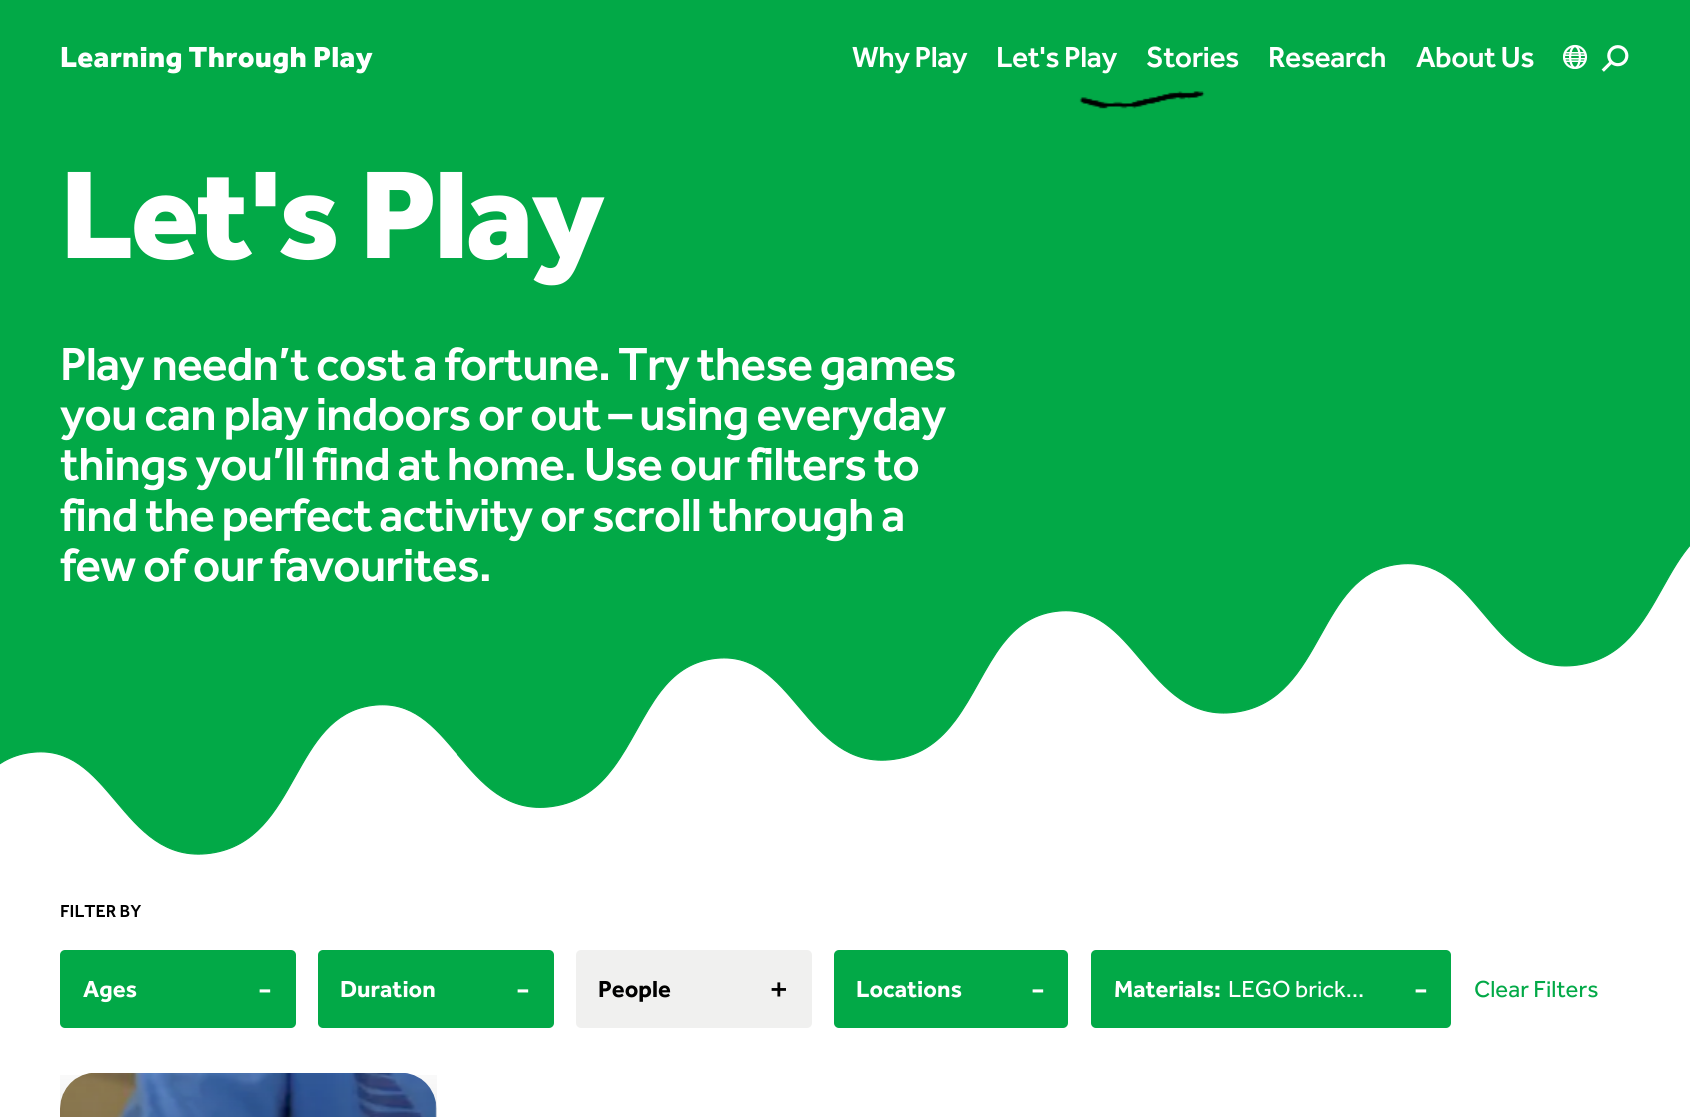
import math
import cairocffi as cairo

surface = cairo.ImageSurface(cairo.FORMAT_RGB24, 1690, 1117)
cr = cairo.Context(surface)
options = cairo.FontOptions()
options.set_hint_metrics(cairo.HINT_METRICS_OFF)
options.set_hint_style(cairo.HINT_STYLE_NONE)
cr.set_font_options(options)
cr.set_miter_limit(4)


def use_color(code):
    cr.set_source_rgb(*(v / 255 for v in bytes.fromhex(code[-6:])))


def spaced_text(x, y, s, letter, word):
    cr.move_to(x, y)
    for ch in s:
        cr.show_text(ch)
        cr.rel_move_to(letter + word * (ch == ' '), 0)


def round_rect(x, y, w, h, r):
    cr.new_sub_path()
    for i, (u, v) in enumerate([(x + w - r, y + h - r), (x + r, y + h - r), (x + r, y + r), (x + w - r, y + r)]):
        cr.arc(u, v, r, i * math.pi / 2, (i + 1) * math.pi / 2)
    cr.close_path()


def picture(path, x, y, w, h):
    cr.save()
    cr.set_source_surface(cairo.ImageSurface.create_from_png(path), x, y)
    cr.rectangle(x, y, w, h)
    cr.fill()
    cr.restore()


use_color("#ffffff")
cr.paint()
use_color("#02a947")
cr.rectangle(0, 0, 1690, 546)
cr.fill()
cr.select_font_face("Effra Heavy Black")
cr.set_font_size(30)
use_color("#ffffff")
spaced_text(60, 67, "Learning Through Play", 0.3, 0)
cr.select_font_face("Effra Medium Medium")
spaced_text(852, 67, "Why Play", -0.5, 0)
spaced_text(996, 67, "Let's Play", -0.5, 0)
spaced_text(1146, 67, "Stories", -0.5, 0)
spaced_text(1268, 67, "Research", -0.5, 0)
spaced_text(1416, 67, "About Us", -0.5, 0)
picture("img1.png", 1563, 44, 25, 25)
picture("img2.png", 1601, 45, 28, 27)
picture("img3.png", 1079, 91, 126, 18)
cr.select_font_face("Effra Heavy Black")
cr.set_font_size(129)
spaced_text(60, 258, "Let's Play", -2.5, 0)
cr.select_font_face("Effra Medium Medium")
cr.set_font_size(48)
spaced_text(60, 380, "Play needn’t cost a fortune. Try these games", -0.95, 0)
spaced_text(60, 430, "you can play indoors or out – using everyday", -0.95, 0)
spaced_text(60, 480, "things you’ll find at home. Use our filters to", -0.95, 0)
spaced_text(60, 531, "find the perfect activity or scroll through a", -0.95, 0)
picture("img4.png", 0, 546, 1690, 309)
spaced_text(60, 581, "few of our favourites.", -0.95, 0)
cr.set_font_size(18)
use_color("#000000")
cr.move_to(60, 917)
cr.show_text("FILTER BY")
use_color("#02a947")
round_rect(60, 950, 236, 78, 5)
cr.fill()
cr.select_font_face("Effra", cairo.FONT_SLANT_NORMAL, cairo.FONT_WEIGHT_BOLD)
cr.set_font_size(24)
use_color("#ffffff")
cr.move_to(83, 997)
cr.show_text("Ages")
cr.select_font_face("Effra")
cr.set_font_size(36)
cr.move_to(257, 1001)
cr.show_text("-")
use_color("#02a947")
round_rect(318, 950, 236, 78, 5)
cr.fill()
cr.select_font_face("Effra", cairo.FONT_SLANT_NORMAL, cairo.FONT_WEIGHT_BOLD)
cr.set_font_size(24)
use_color("#ffffff")
cr.move_to(340, 997)
cr.show_text("Duration")
cr.select_font_face("Effra")
cr.set_font_size(36)
cr.move_to(515, 1001)
cr.show_text("-")
use_color("#f0f0ef")
round_rect(576, 950, 236, 78, 5)
cr.fill()
cr.select_font_face("Effra", cairo.FONT_SLANT_NORMAL, cairo.FONT_WEIGHT_BOLD)
cr.set_font_size(24)
use_color("#000000")
cr.move_to(598, 997)
cr.show_text("People")
cr.select_font_face("Effra")
cr.set_font_size(36)
cr.move_to(769, 1001)
cr.show_text("+")
use_color("#02a947")
round_rect(834, 950, 234, 78, 5)
cr.fill()
cr.select_font_face("Effra", cairo.FONT_SLANT_NORMAL, cairo.FONT_WEIGHT_BOLD)
cr.set_font_size(24)
use_color("#ffffff")
cr.move_to(856, 997)
cr.show_text("Locations")
cr.select_font_face("Effra")
cr.set_font_size(36)
cr.move_to(1030, 1001)
cr.show_text("-")
use_color("#02a947")
round_rect(1091, 950, 360, 78, 5)
cr.fill()
cr.select_font_face("Effra", cairo.FONT_SLANT_NORMAL, cairo.FONT_WEIGHT_BOLD)
cr.set_font_size(24)
use_color("#ffffff")
cr.move_to(1114, 997)
cr.show_text("Materials:")
cr.select_font_face("Effra")
cr.move_to(1228, 997)
cr.show_text("LEGO brick…")
cr.set_font_size(36)
cr.move_to(1413, 1001)
cr.show_text("-")
cr.set_font_size(24)
use_color("#02a947")
cr.move_to(1474, 997)
cr.show_text("Clear Filters")
picture("img5.png", 60, 1073, 377, 44)
gradient = cairo.LinearGradient(248, 1073, 248, 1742)
gradient.add_color_stop_rgba(0, 0, 0, 0, 0.02)
gradient.add_color_stop_rgba(1, 0, 0, 0, 0.6)
cr.set_source(gradient)
cr.rectangle(60, 1075, 377, 42)
cr.fill()
surface.write_to_png("result.png")
